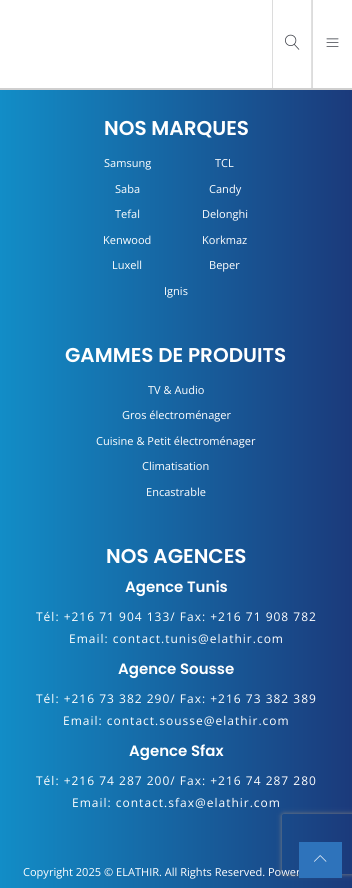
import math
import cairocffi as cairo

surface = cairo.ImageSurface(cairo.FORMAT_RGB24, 352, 888)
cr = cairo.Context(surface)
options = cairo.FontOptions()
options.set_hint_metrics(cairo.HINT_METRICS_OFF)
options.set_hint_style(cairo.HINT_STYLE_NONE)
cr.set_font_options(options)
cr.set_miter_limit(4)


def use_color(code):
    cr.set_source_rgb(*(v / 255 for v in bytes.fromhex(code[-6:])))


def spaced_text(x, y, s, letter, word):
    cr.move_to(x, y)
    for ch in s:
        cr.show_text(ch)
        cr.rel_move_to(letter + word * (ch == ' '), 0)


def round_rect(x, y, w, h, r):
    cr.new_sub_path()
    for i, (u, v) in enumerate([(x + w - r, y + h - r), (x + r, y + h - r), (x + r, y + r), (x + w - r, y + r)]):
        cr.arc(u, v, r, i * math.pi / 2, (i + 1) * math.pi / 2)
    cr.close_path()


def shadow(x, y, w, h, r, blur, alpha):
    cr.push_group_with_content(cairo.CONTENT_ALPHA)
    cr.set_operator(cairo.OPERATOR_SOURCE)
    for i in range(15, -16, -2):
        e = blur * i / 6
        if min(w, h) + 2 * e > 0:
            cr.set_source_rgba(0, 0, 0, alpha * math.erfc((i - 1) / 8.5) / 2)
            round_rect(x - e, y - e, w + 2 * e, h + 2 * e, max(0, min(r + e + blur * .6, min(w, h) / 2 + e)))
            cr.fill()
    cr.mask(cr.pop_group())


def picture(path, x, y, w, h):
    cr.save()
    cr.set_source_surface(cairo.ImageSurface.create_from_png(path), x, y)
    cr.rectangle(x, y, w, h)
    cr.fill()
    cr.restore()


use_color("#ffffff")
cr.paint()
use_color("#cfcfcf")
cr.rectangle(0, 88, 352, 2)
cr.fill()
use_color("#e0e0e0")
cr.rectangle(311, 0, 1, 88)
cr.fill()
use_color("#dcdcdc")
cr.rectangle(272, 0, 1, 88)
cr.fill()
picture("img1.png", 285, 34, 15, 16)
cr.rectangle(312, 0, 1, 88)
cr.fill()
picture("img2.png", 326, 38, 13, 9)
gradient = cairo.LinearGradient(0, 428, 352, 428)
gradient.add_color_stop_rgba(0, 0.071, 0.553, 0.78, 1)
gradient.add_color_stop_rgba(1, 0.106, 0.227, 0.482, 1)
cr.set_source(gradient)
cr.rectangle(0, 90, 352, 798)
cr.fill()
cr.select_font_face("Poppins SemiBold")
cr.set_font_size(20)
use_color("#ffffff")
cr.move_to(104, 135)
cr.show_text("NOS MARQUES")
cr.select_font_face("Open Sans")
cr.set_font_size(11.05)
cr.move_to(104, 167)
cr.show_text("Samsung")
cr.move_to(215, 167)
cr.show_text("TCL")
cr.move_to(115, 193)
cr.show_text("Saba")
cr.move_to(209, 193)
cr.show_text("Candy")
cr.move_to(115, 218)
cr.show_text("Tefal")
cr.move_to(202, 218)
cr.show_text("Delonghi")
cr.move_to(103, 244)
cr.show_text("Kenwood")
cr.move_to(202, 244)
cr.show_text("Korkmaz")
cr.move_to(112, 269)
cr.show_text("Luxell")
cr.move_to(209, 269)
cr.show_text("Beper")
cr.move_to(164, 295)
cr.show_text("Ignis")
cr.select_font_face("Poppins SemiBold")
cr.set_font_size(20)
cr.move_to(65, 362)
cr.show_text("GAMMES DE PRODUITS")
cr.select_font_face("Open Sans")
cr.set_font_size(11.05)
cr.move_to(148, 394)
cr.show_text("TV & Audio")
cr.move_to(122, 419)
cr.show_text("Gros électroménager")
cr.move_to(96, 445)
cr.show_text("Cuisine & Petit électroménager")
cr.move_to(142, 470)
cr.show_text("Climatisation")
cr.move_to(146, 496)
cr.show_text("Encastrable")
cr.select_font_face("Poppins SemiBold")
cr.set_font_size(20)
cr.move_to(106, 563)
cr.show_text("NOS AGENCES")
cr.set_font_size(15)
cr.move_to(125, 592)
cr.show_text("Agence Tunis")
cr.select_font_face("Open Sans")
cr.set_font_size(12)
spaced_text(36, 621, "Tél: +216 71 904 133/ Fax: +216 71 908 782", 1, 0)
spaced_text(69, 643, "Email: contact.tunis@elathir.com", 1, 0)
cr.select_font_face("Poppins SemiBold")
cr.set_font_size(15)
cr.move_to(118, 674)
cr.show_text("Agence Sousse")
cr.select_font_face("Open Sans")
cr.set_font_size(12)
spaced_text(36, 703, "Tél: +216 73 382 290/ Fax: +216 73 382 389", 1, 0)
spaced_text(63, 725, "Email: contact.sousse@elathir.com", 1, 0)
cr.select_font_face("Poppins SemiBold")
cr.set_font_size(15)
cr.move_to(129, 756)
cr.show_text("Agence Sfax")
cr.select_font_face("Open Sans")
cr.set_font_size(12)
spaced_text(36, 785, "Tél: +216 74 287 200/ Fax: +216 74 287 280", 1, 0)
spaced_text(72, 807, "Email: contact.sfax@elathir.com", 1, 0)
cr.set_font_size(11.05)
cr.move_to(23, 876)
cr.show_text("Copyright 2025 © ELATHIR. All Rights Reserved. Power")
cr.save()
cr.set_fill_rule(cairo.FILL_RULE_EVEN_ODD)
cr.new_path()
cr.move_to(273, 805)
cr.line_to(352, 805)
cr.line_to(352, 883)
cr.line_to(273, 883)
cr.close_path()
cr.move_to(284, 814)
cr.line_to(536, 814)
cr.curve_to(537, 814, 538, 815, 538, 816)
cr.line_to(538, 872)
cr.curve_to(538, 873, 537, 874, 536, 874)
cr.line_to(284, 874)
cr.curve_to(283, 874, 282, 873, 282, 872)
cr.line_to(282, 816)
cr.curve_to(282, 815, 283, 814, 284, 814)
cr.close_path()
cr.clip()
use_color("#808080")
shadow(282, 814, 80, 60, 2, 2.5, 1)
cr.restore()
use_color("#2e73bb")
cr.rectangle(299, 842, 43, 36)
cr.fill()
picture("img3.png", 314, 855, 13, 7)
surface.write_to_png("result.png")
